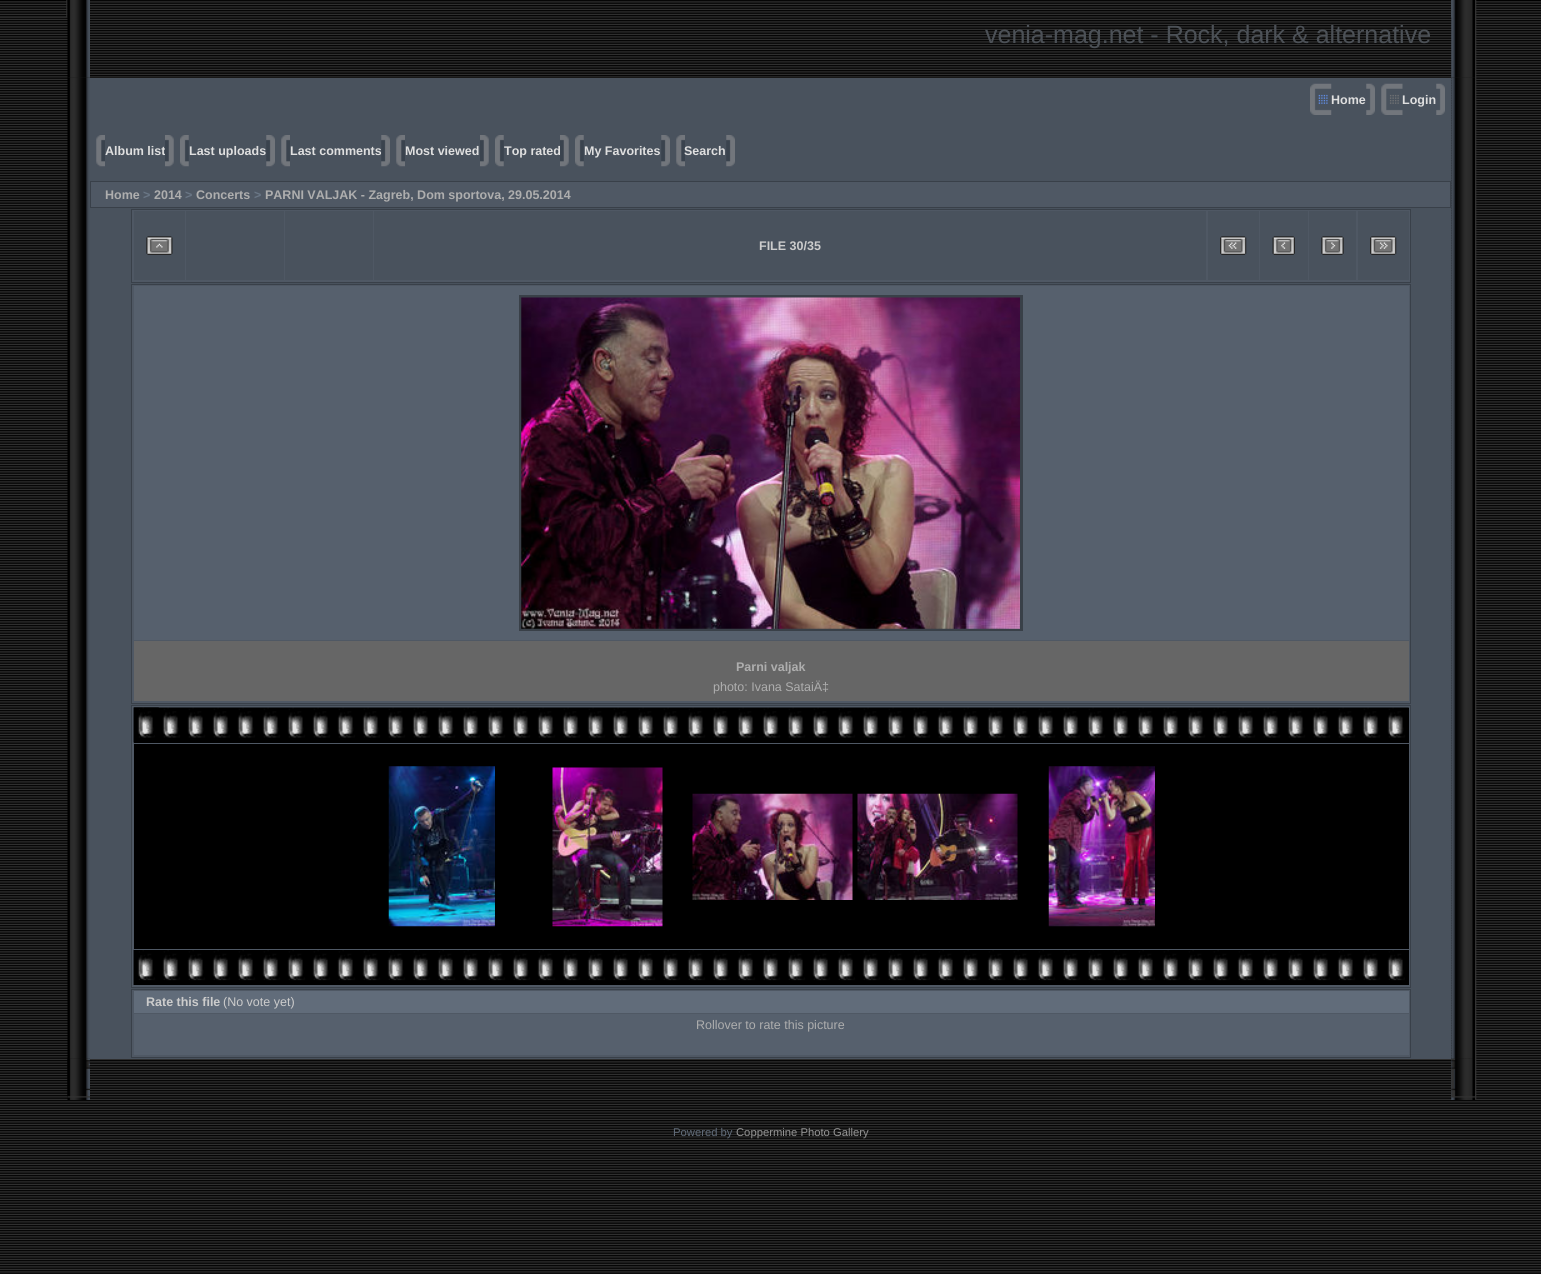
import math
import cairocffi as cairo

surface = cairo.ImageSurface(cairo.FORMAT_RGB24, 1541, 1274)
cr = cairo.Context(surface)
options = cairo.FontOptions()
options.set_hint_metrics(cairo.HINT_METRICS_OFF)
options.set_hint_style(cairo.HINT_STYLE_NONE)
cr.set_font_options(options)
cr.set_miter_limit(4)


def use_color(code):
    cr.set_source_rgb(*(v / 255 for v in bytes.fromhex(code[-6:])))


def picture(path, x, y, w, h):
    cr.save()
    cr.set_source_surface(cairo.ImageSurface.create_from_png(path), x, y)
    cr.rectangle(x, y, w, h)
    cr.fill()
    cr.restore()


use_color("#ffffff")
cr.paint()
picture("img1.png", 0, 0, 1541, 1274)
picture("img3.png", 67, 0, 23, 78)
picture("img2.png", 0, 0, 68, 18)
picture("img4.png", 67, 0, 1, 18)
cr.select_font_face("Liberation Sans")
cr.set_font_size(25)
use_color("#4c5157")
cr.move_to(985, 43)
cr.show_text("venia-mag.net - Rock, dark & alternative")
picture("img5.png", 1451, 0, 24, 78)
picture("img6.png", 1451, 0, 1, 18)
picture("img7.png", 1475, 0, 2, 1099)
picture("img8.png", 1476, 0, 65, 18)
picture("img9.png", 67, 77, 23, 982)
use_color("#49525d")
cr.rectangle(90, 78, 1361, 981)
cr.fill()
picture("img10.png", 1310, 83, 22, 32)
cr.select_font_face("Liberation Sans", cairo.FONT_SLANT_NORMAL, cairo.FONT_WEIGHT_BOLD)
cr.set_font_size(12.5)
use_color("#dfdfdf")
cr.move_to(1331, 104)
cr.show_text("Home")
picture("img11.png", 1366, 83, 9, 32)
picture("img12.png", 1381, 83, 22, 32)
cr.move_to(1402, 104)
cr.show_text("Login")
picture("img11.png", 1436, 83, 9, 32)
picture("img13.png", 96, 135, 9, 32)
cr.move_to(105, 155)
cr.show_text("Album list")
picture("img14.png", 165, 135, 9, 32)
picture("img15.png", 180, 135, 9, 32)
cr.move_to(189, 155)
cr.show_text("Last uploads")
picture("img16.png", 266, 135, 9, 32)
picture("img13.png", 281, 135, 9, 32)
cr.move_to(290, 155)
cr.show_text("Last comments")
picture("img17.png", 381, 135, 9, 32)
picture("img13.png", 396, 135, 9, 32)
cr.move_to(405, 155)
cr.show_text("Most viewed")
picture("img18.png", 480, 135, 9, 32)
picture("img19.png", 495, 135, 9, 32)
cr.move_to(504, 155)
cr.show_text("Top rated")
picture("img18.png", 560, 135, 9, 32)
picture("img19.png", 575, 135, 9, 32)
cr.move_to(584, 155)
cr.show_text("My Favorites")
picture("img16.png", 661, 135, 9, 32)
picture("img13.png", 676, 135, 9, 32)
cr.move_to(684, 155)
cr.show_text("Search")
picture("img16.png", 726, 135, 9, 32)
use_color("#4f5864")
cr.rectangle(90.5, 181.5, 1360, 26)
cr.fill_preserve()
use_color("#394049")
cr.set_line_width(1)
cr.stroke()
use_color("#aeaeae")
cr.move_to(105, 199)
cr.show_text("Home")
use_color("#6a7786")
cr.move_to(143, 199)
cr.show_text(">")
use_color("#aeaeae")
cr.move_to(154, 199)
cr.show_text("2014")
use_color("#6a7786")
cr.move_to(185, 199)
cr.show_text(">")
use_color("#aeaeae")
cr.move_to(196, 199)
cr.show_text("Concerts")
use_color("#6a7786")
cr.move_to(254, 199)
cr.show_text(">")
use_color("#aeaeae")
cr.move_to(265, 199)
cr.show_text("PARNI VALJAK - Zagreb, Dom sportova, 29.05.2014")
use_color("#4f5864")
cr.rectangle(131.5, 209.5, 1279, 73)
cr.fill_preserve()
use_color("#394049")
cr.stroke()
use_color("#49525d")
cr.rectangle(134, 211, 51, 69)
cr.fill()
picture("img20.png", 146, 236, 27, 19)
cr.rectangle(186, 211, 98, 69)
cr.fill()
cr.rectangle(285, 211, 88, 69)
cr.fill()
cr.rectangle(374, 211, 832, 69)
cr.fill()
use_color("#cccccc")
cr.move_to(759, 250)
cr.show_text("FILE 30/35")
use_color("#49525d")
cr.rectangle(1208, 211, 51, 69)
cr.fill()
picture("img21.png", 1220, 236, 27, 19)
cr.rectangle(1260, 211, 48, 69)
cr.fill()
picture("img22.png", 1272, 236, 23, 19)
cr.rectangle(1309, 211, 47, 69)
cr.fill()
picture("img23.png", 1321, 236, 23, 19)
cr.rectangle(1358, 211, 51, 69)
cr.fill()
picture("img24.png", 1370, 236, 27, 19)
use_color("#4f5864")
cr.rectangle(131.5, 284.5, 1279, 419)
cr.fill_preserve()
use_color("#394049")
cr.stroke()
use_color("#56606d")
cr.rectangle(134, 286, 1275, 354)
cr.fill()
cr.rectangle(520.5, 296.5, 501, 333)
use_color("#394048")
cr.set_line_width(3)
cr.stroke()
picture("img25.png", 521, 297, 499, 332)
use_color("#666666")
cr.rectangle(134, 641, 1275, 60)
cr.fill()
use_color("#aeaeae")
cr.move_to(736, 671)
cr.show_text("Parni valjak")
cr.select_font_face("Liberation Sans")
cr.move_to(713, 691)
cr.show_text("photo: Ivana SataiÄ‡")
use_color("#4f5864")
cr.rectangle(131.5, 705.5, 1279, 282)
cr.fill_preserve()
use_color("#394049")
cr.set_line_width(1)
cr.stroke()
use_color("#000000")
cr.rectangle(134, 708, 1275, 35)
cr.fill()
picture("img26.png", 133, 707, 1276, 36)
picture("img27.png", 133, 707, 26, 36)
cr.rectangle(134, 744, 1275, 205)
cr.fill()
picture("img28.png", 388, 766, 107, 161)
picture("img29.png", 552, 767, 111, 160)
picture("img30.png", 692, 793, 161, 107)
picture("img31.png", 857, 793, 161, 107)
picture("img32.png", 1048, 766, 107, 161)
cr.rectangle(1405, 950, 4, 35)
cr.fill()
picture("img33.png", 133, 950, 1272, 35)
picture("img34.png", 133, 950, 10, 35)
use_color("#4f5864")
cr.rectangle(131.5, 989.5, 1279, 68)
cr.fill_preserve()
use_color("#394049")
cr.stroke()
use_color("#616c7a")
cr.rectangle(134, 991, 1275, 22)
cr.fill()
cr.select_font_face("Liberation Sans", cairo.FONT_SLANT_NORMAL, cairo.FONT_WEIGHT_BOLD)
use_color("#cccccc")
cr.move_to(146, 1006)
cr.show_text("Rate this file")
cr.select_font_face("Liberation Sans")
cr.move_to(223, 1006)
cr.show_text("(No vote yet)")
use_color("#56606d")
cr.rectangle(134, 1014, 1275, 41)
cr.fill()
use_color("#aeaeae")
cr.move_to(696, 1029)
cr.show_text("Rollover to rate this picture")
picture("img35.png", 1451, 77, 24, 982)
picture("img36.png", 67, 1058, 23, 42)
picture("img37.png", 67, 1058, 23, 40)
picture("img38.png", 1451, 1058, 24, 42)
picture("img39.png", 1451, 1058, 24, 40)
cr.set_font_size(11.25)
use_color("#616c7a")
cr.move_to(673, 1136)
cr.show_text("Powered by")
use_color("#949494")
cr.move_to(736, 1136)
cr.show_text("Coppermine Photo Gallery")
surface.write_to_png("result.png")
